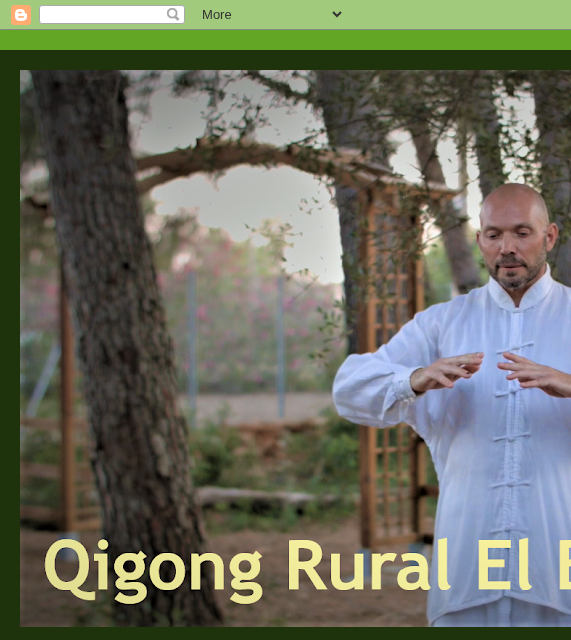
import math
import cairocffi as cairo

surface = cairo.ImageSurface(cairo.FORMAT_RGB24, 571, 640)
cr = cairo.Context(surface)
options = cairo.FontOptions()
options.set_hint_metrics(cairo.HINT_METRICS_OFF)
options.set_hint_style(cairo.HINT_STYLE_NONE)
cr.set_font_options(options)
cr.set_miter_limit(4)


def use_color(code):
    cr.set_source_rgb(*(v / 255 for v in bytes.fromhex(code[-6:])))


def picture(path, x, y, w, h):
    cr.save()
    cr.set_source_surface(cairo.ImageSurface.create_from_png(path), x, y)
    cr.rectangle(x, y, w, h)
    cr.fill()
    cr.restore()


use_color("#63a625")
cr.paint()
picture("img1.png", 0, 0, 571, 30)
use_color("#1e320b")
cr.rectangle(0, 50, 571, 590)
cr.fill()
picture("img2.png", 20, 70, 551, 557)
surface.write_to_png("result.png")
